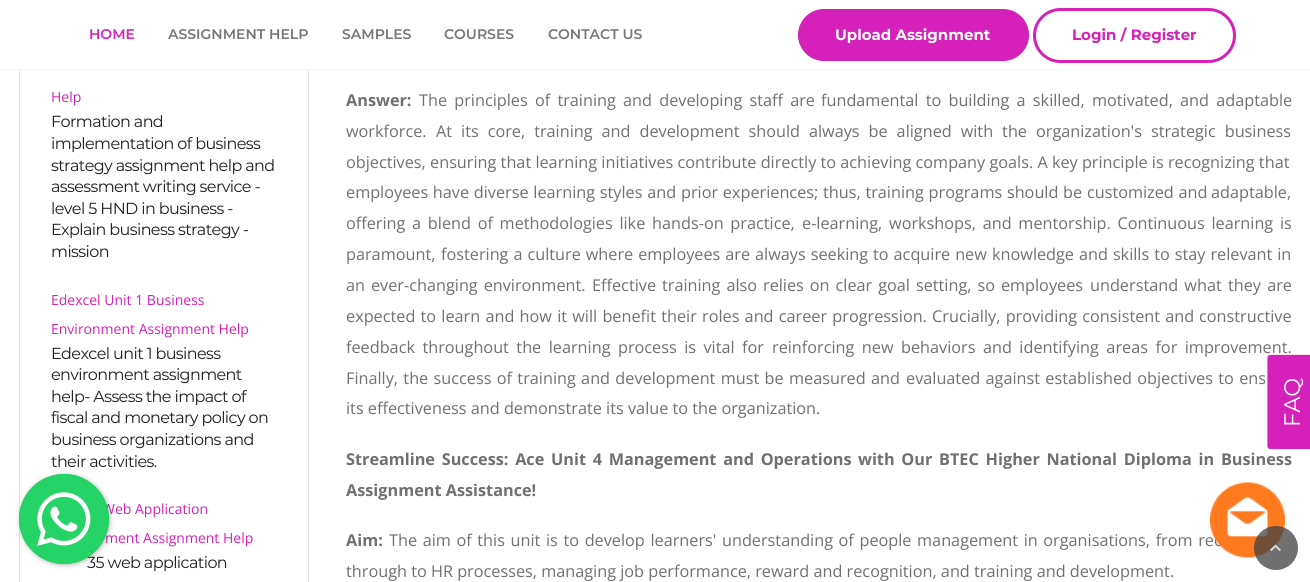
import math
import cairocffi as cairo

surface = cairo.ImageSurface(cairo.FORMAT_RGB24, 1310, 582)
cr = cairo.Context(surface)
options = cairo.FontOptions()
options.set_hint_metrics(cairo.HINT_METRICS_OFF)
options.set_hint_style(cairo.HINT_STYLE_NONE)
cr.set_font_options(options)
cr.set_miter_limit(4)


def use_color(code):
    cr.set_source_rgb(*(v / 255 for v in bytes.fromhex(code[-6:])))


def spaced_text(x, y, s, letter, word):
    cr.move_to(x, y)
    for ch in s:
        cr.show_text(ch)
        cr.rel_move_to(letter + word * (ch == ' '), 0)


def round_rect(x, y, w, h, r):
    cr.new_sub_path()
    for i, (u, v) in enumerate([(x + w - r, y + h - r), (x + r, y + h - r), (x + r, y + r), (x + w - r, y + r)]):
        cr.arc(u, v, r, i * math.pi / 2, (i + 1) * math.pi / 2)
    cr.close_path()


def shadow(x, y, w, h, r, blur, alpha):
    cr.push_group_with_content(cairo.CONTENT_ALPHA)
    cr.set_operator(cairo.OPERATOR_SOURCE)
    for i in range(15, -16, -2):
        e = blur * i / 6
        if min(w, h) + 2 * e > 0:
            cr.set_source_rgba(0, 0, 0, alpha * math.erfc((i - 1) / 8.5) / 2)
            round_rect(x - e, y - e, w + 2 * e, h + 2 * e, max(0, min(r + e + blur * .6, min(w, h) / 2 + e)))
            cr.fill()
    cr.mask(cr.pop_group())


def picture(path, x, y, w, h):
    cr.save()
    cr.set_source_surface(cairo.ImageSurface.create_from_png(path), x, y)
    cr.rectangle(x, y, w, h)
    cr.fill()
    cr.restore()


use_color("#ffffff")
cr.paint()
cr.select_font_face("Montserrat SemiBold")
cr.set_font_size(14)
use_color("#d520b9")
cr.move_to(89, 39)
cr.show_text("HOME")
use_color("#777777")
cr.move_to(168, 39)
cr.show_text("ASSIGNMENT HELP")
cr.move_to(342, 39)
cr.show_text("SAMPLES")
cr.move_to(444, 39)
cr.show_text("COURSES")
cr.move_to(548, 39)
cr.show_text("CONTACT US")
use_color("#d520b9")
round_rect(798.5, 9.5, 230, 51, 25.5)
cr.fill_preserve()
cr.set_line_width(1)
cr.stroke()
cr.select_font_face("Montserrat", cairo.FONT_SLANT_NORMAL, cairo.FONT_WEIGHT_BOLD)
cr.set_font_size(15)
use_color("#ffffff")
cr.move_to(835, 40)
cr.show_text("Upload Assignment")
round_rect(1034.5, 9.5, 200, 52, 26)
use_color("#d520b9")
cr.set_line_width(3)
cr.stroke()
cr.move_to(1072, 40)
cr.show_text("Login / Register")
use_color("#f5f5f5")
cr.rectangle(0, 69, 1310, 1)
cr.fill()
cr.select_font_face("Open Sans")
cr.set_font_size(16.25)
use_color("#707070")
spaced_text(389, 546, "The aim of this unit is to develop learners' understanding of people management in organisations, from rec", 0, 1.4)
picture("img1.png", 1210, 482, 75, 76)
use_color("#dae2e6")
cr.rectangle(308, 70, 1, 512)
cr.fill()
cr.rectangle(19, 70, 1, 512)
cr.fill()
cr.set_font_size(14)
use_color("#d520b9")
cr.move_to(51, 102)
cr.show_text("Help")
cr.select_font_face("Montserrat")
cr.set_font_size(16)
use_color("#1c1f21")
spaced_text(51, 127, "Formation and", -0.6, 0)
spaced_text(51, 149, "implementation of business", -0.6, 0)
spaced_text(51, 171, "strategy assignment help and", -0.6, 0)
spaced_text(51, 192, "assessment writing service -", -0.6, 0)
spaced_text(51, 214, "level 5 HND in business -", -0.6, 0)
spaced_text(51, 235, "Explain business strategy -", -0.6, 0)
spaced_text(51, 257, "mission", -0.6, 0)
cr.select_font_face("Open Sans")
cr.set_font_size(14)
use_color("#d520b9")
cr.move_to(51, 305)
cr.show_text("Edexcel Unit 1 Business")
cr.move_to(51, 334)
cr.show_text("Environment Assignment Help")
cr.select_font_face("Montserrat")
cr.set_font_size(16)
use_color("#1c1f21")
spaced_text(51, 359, "Edexcel unit 1 business", -0.6, 0)
spaced_text(51, 380, "environment assignment", -0.6, 0)
spaced_text(51, 402, "help- Assess the impact of", -0.6, 0)
spaced_text(51, 423, "fiscal and monetary policy on", -0.6, 0)
spaced_text(51, 445, "business organizations and", -0.6, 0)
spaced_text(51, 467, "their activities.", -0.6, 0)
cr.select_font_face("Open Sans")
cr.set_font_size(14)
use_color("#d520b9")
cr.move_to(102, 514)
cr.show_text("Web Application")
cr.move_to(105, 543)
cr.show_text("ment Assignment Help")
cr.select_font_face("Montserrat")
cr.set_font_size(16)
use_color("#1c1f21")
spaced_text(87, 568, "35 web application", -0.6, 0)
cr.select_font_face("Open Sans", cairo.FONT_SLANT_NORMAL, cairo.FONT_WEIGHT_BOLD)
cr.set_font_size(16.25)
use_color("#707070")
cr.move_to(346, 106)
cr.show_text("Answer:")
cr.select_font_face("Open Sans")
spaced_text(419, 106, "The principles of training and developing staff are", 0, 3)
spaced_text(821, 106, "fundamental to building a skilled, motivated, and adaptable", 0, 3)
cr.move_to(346, 137)
cr.show_text("workforce.")
spaced_text(436, 137, "At its core, training and development should always be aligned with the", 0, 4.75)
spaced_text(1036, 137, "organization's strategic business", 0, 4.75)
cr.move_to(346, 168)
cr.show_text("objectives, ensuring that learning initiatives contribute directly to achieving company goals. A key principle is recognizing that")
spaced_text(346, 198, "employees have diverse learning styles and", 0, 0.5)
spaced_text(681, 198, "prior experiences; thus, training programs should be customized and", 0, 0.5)
cr.move_to(1211, 198)
cr.show_text("adaptable,")
spaced_text(346, 229, "offering a blend of methodologies like hands-on practice,", 0, 2.5)
spaced_text(802, 229, "e-learning, workshops, and mentorship. Continuous learning is", 0, 2.5)
cr.move_to(346, 260)
cr.show_text("paramount,")
spaced_text(441, 260, "fostering a culture where employees are always seeking to acquire new", 0, 0.75)
spaced_text(992, 260, "knowledge and skills to stay relevant in", 0, 0.75)
spaced_text(346, 291, "an ever-changing environment.", 0, 1.75)
spaced_text(592, 291, "Effective training also relies on clear goal setting, so employees", 0, 1.75)
spaced_text(1090, 291, "understand what they are", 0, 2)
spaced_text(346, 322, "expected to learn and how it will benefit their", 0, 1)
spaced_text(702, 322, "roles and career progression. Crucially, providing consistent and", 0, 1)
cr.move_to(1199, 322)
cr.show_text("constructive")
spaced_text(346, 353, "feedback throughout the learning process is vital for", 0, 3.25)
spaced_text(772, 353, "reinforcing new behaviors and identifying areas for improvement.", 0, 3.25)
spaced_text(346, 384, "Finally, the success of training and development must be measured and", 0, 1.1)
spaced_text(906, 384, "evaluated against established objectives to ens", 0, 1.1)
cr.move_to(346, 414)
cr.show_text("its effectiveness and demonstrate its value to the organization.")
cr.select_font_face("Open Sans", cairo.FONT_SLANT_NORMAL, cairo.FONT_WEIGHT_BOLD)
spaced_text(346, 465, "Streamline Success: Ace", 0, 2.5)
spaced_text(551, 465, "Unit 4 Management and Operations", 0, 2.5)
spaced_text(858, 465, "with Our BTEC Higher National Diploma in Business", 0, 2.5)
cr.move_to(346, 496)
cr.show_text("Assignment Assistance!")
cr.move_to(346, 546)
cr.show_text("Aim:")
cr.select_font_face("Open Sans")
cr.move_to(346, 577)
cr.show_text("through to HR processes, managing job performance, reward and recognition, and training and development.")
use_color("#d520b9")
cr.new_path()
cr.move_to(1268, 446)
cr.line_to(1268, 358)
cr.curve_to(1268, 356, 1269, 355, 1270, 355)
cr.line_to(1310, 355)
cr.line_to(1310, 449)
cr.line_to(1270, 449)
cr.curve_to(1269, 449, 1268, 448, 1268, 446)
cr.close_path()
cr.fill()
cr.new_path()
cr.move_to(1268, 446)
cr.line_to(1268, 357.5)
cr.curve_to(1268, 356.5, 1269, 355.5, 1270, 355.5)
cr.line_to(1309.5, 355.5)
cr.line_to(1309.5, 448)
cr.line_to(1270, 448)
cr.curve_to(1269, 448, 1268, 447.5, 1268, 446)
cr.close_path()
cr.set_line_width(1.2)
cr.stroke()
cr.select_font_face("Montserrat")
cr.set_font_size(22.5)
use_color("#ffffff")
cr.save()
cr.translate(1300, 427)
cr.rotate(-90 * math.pi / 180)
cr.move_to(0, 0)
cr.show_text("FAQ")
cr.restore()
use_color("#3c3c3c")
shadow(20, 475, 90, 90, 45, 2.5, 0.4)
use_color("#25d366")
cr.arc(64, 519, 45, 0, 2 * math.pi)
cr.fill()
picture("img2.png", 19, 474, 90, 90)
cr.set_source_rgba(0.251, 0.251, 0.251, 0.75)
cr.arc(1276, 548, 22, 0, 2 * math.pi)
cr.fill()
picture("img3.png", 1270, 544, 11, 7)
surface.write_to_png("result.png")
